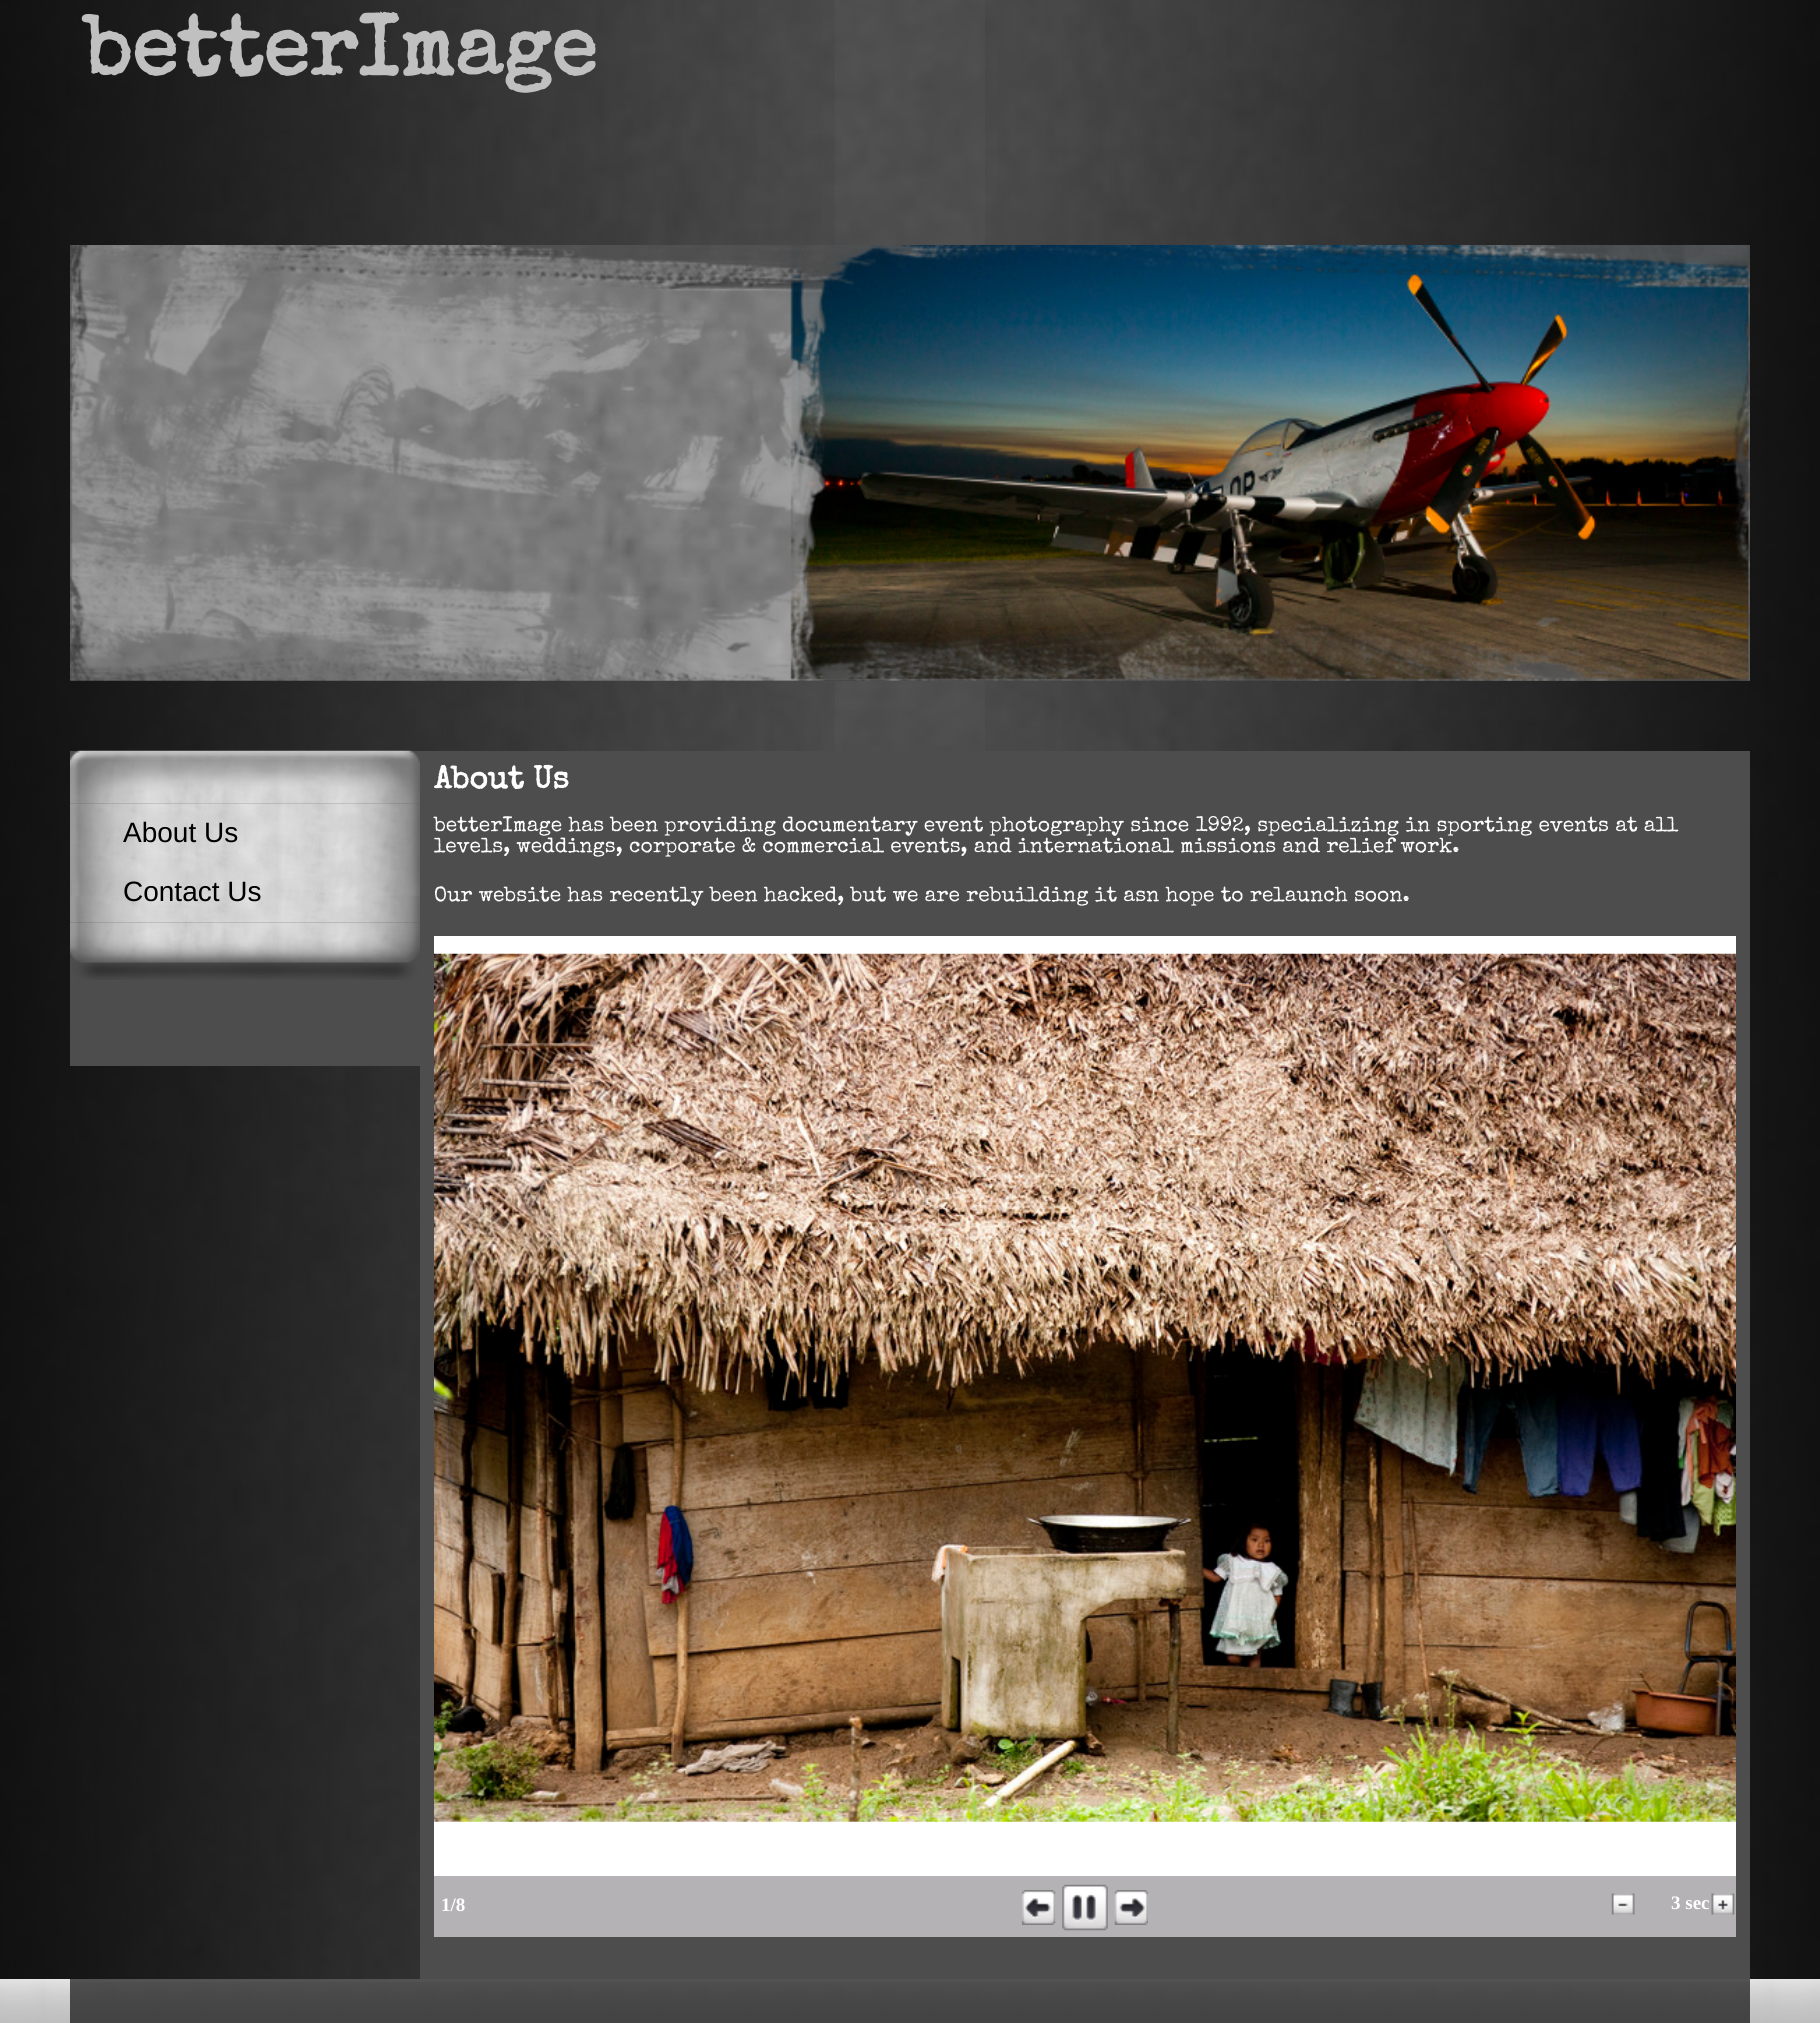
import math
import cairocffi as cairo

surface = cairo.ImageSurface(cairo.FORMAT_RGB24, 1820, 2023)
cr = cairo.Context(surface)
options = cairo.FontOptions()
options.set_hint_metrics(cairo.HINT_METRICS_OFF)
options.set_hint_style(cairo.HINT_STYLE_NONE)
cr.set_font_options(options)
cr.set_miter_limit(4)


def use_color(code):
    cr.set_source_rgb(*(v / 255 for v in bytes.fromhex(code[-6:])))


def picture(path, x, y, w, h):
    cr.save()
    cr.set_source_surface(cairo.ImageSurface.create_from_png(path), x, y)
    cr.rectangle(x, y, w, h)
    cr.fill()
    cr.restore()


use_color("#ffffff")
cr.paint()
picture("img1.png", 0, 0, 1820, 1979)
picture("img2.png", 0, 0, 835, 1979)
picture("img3.png", 985, 0, 835, 1979)
cr.select_font_face("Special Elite", cairo.FONT_SLANT_NORMAL, cairo.FONT_WEIGHT_BOLD)
cr.set_font_size(84)
use_color("#c0c0c0")
cr.move_to(84, 74)
cr.show_text("betterImage")
picture("img4.png", 700, 245, 1050, 436)
picture("img5.png", 70, 245, 1680, 436)
use_color("#4d4d4d")
cr.rectangle(70, 751, 350, 315)
cr.fill()
picture("img6.png", 70, 750, 350, 54)
picture("img7.png", 70, 803, 350, 120)
cr.select_font_face("Liberation Sans")
cr.set_font_size(28)
use_color("#000000")
cr.move_to(123, 842)
cr.show_text("About Us")
cr.move_to(123, 901)
cr.show_text("Contact Us")
picture("img8.png", 70, 922, 350, 58)
use_color("#4d4d4d")
cr.rectangle(420, 751, 1330, 1228)
cr.fill()
cr.select_font_face("Special Elite", cairo.FONT_SLANT_NORMAL, cairo.FONT_WEIGHT_BOLD)
cr.set_font_size(31.5)
use_color("#ffffff")
cr.move_to(434, 788)
cr.show_text("About Us")
cr.select_font_face("Special Elite")
cr.set_font_size(21)
cr.move_to(434, 831)
cr.show_text("betterImage has been providing documentary event photography since 1992, specializing in sporting events at all")
cr.move_to(434, 852)
cr.show_text("levels, weddings, corporate & commercial events, and international missions and relief work.")
cr.move_to(434, 901)
cr.show_text("Our website has recently been hacked, but we are rebuilding it asn hope to relaunch soon.")
cr.rectangle(434, 936, 1302, 940)
cr.fill()
picture("img9.png", 434, 953, 1302, 869)
use_color("#b5b2b5")
cr.rectangle(434, 1876, 1302, 61)
cr.fill()
cr.select_font_face("Liberation Serif", cairo.FONT_SLANT_NORMAL, cairo.FONT_WEIGHT_BOLD)
cr.set_font_size(19)
use_color("#ffffff")
cr.move_to(441, 1911)
cr.show_text("1/8")
picture("img10.png", 1022, 1890, 34, 35)
picture("img11.png", 1062, 1884, 46, 47)
picture("img12.png", 1114, 1890, 34, 35)
picture("img13.png", 1611, 1893, 24, 22)
cr.move_to(1671, 1909)
cr.show_text("3 sec")
picture("img14.png", 1711, 1893, 24, 22)
use_color("#e9e9e9")
cr.rectangle(0, 1979, 1820, 44)
cr.fill()
picture("img15.png", 0, 1979, 1820, 44)
use_color("#525252")
cr.rectangle(70, 1979, 1680, 44)
cr.fill()
picture("img16.png", 70, 1982, 1680, 41)
surface.write_to_png("result.png")
